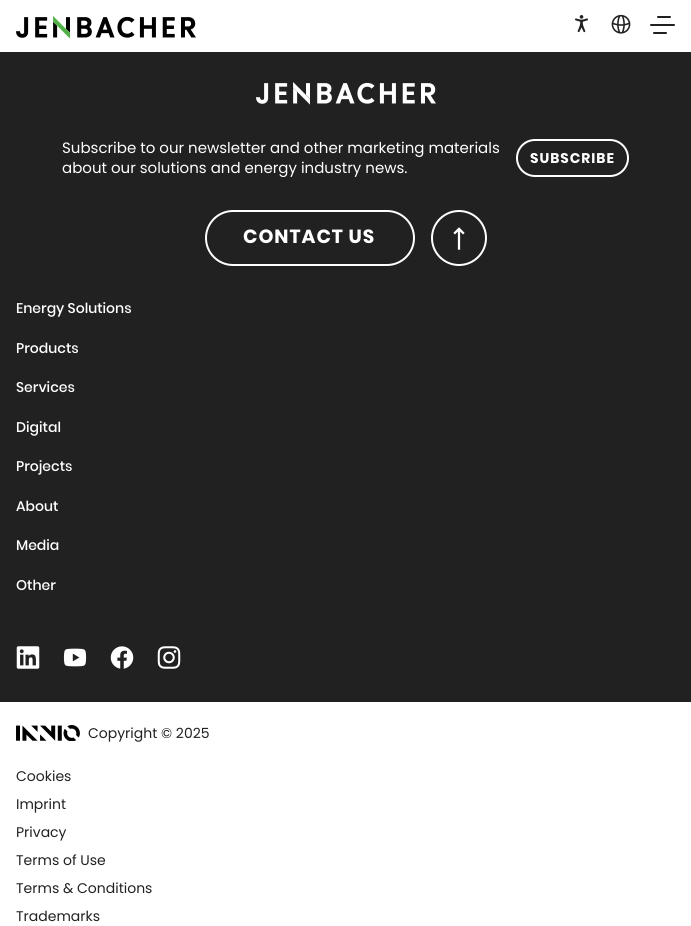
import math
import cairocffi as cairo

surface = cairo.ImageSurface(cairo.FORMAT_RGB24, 691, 926)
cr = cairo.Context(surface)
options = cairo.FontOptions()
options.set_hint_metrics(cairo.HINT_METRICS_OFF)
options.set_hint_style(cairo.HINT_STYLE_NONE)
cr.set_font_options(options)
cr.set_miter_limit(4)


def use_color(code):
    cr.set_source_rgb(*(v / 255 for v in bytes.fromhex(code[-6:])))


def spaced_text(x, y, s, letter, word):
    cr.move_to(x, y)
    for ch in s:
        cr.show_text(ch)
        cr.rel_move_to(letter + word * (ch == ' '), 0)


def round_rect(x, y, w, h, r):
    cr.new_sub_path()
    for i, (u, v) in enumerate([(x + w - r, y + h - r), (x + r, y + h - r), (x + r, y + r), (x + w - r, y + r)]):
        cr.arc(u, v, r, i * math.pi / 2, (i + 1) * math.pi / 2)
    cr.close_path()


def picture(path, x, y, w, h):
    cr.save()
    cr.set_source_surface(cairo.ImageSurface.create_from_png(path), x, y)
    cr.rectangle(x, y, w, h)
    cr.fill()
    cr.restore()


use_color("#ffffff")
cr.paint()
picture("img1.png", 16, 16, 180, 23)
use_color("#212121")
cr.arc(581.5, 23.5, 11.5, 0, 2 * math.pi)
cr.fill()
picture("img2.png", 570, 12, 23, 23)
picture("img3.png", 611, 14, 20, 20)
round_rect(657, 16, 14, 2, 1)
cr.fill()
round_rect(650, 24, 25, 2, 1)
cr.fill()
round_rect(653, 32, 14, 2, 1)
cr.fill()
cr.rectangle(0, 52, 691, 650)
cr.fill()
picture("img4.png", 256, 82, 180, 23)
cr.select_font_face("Poppins")
cr.set_font_size(15)
use_color("#ffffff")
cr.move_to(62, 153)
cr.show_text("Subscribe to our newsletter and other marketing materials")
cr.move_to(62, 173)
cr.show_text("about our solutions and energy industry news.")
round_rect(517, 140, 111, 36, 18)
cr.stroke()
cr.select_font_face("Poppins", cairo.FONT_SLANT_NORMAL, cairo.FONT_WEIGHT_BOLD)
cr.set_font_size(14)
spaced_text(530, 163, "SUBSCRIBE", 1, 0)
round_rect(206, 211, 208, 54, 27)
cr.stroke()
cr.set_font_size(19)
spaced_text(243, 243, "CONTACT US", 1, 0)
cr.new_path()
cr.arc(459, 238, 27, 0, 2 * math.pi)
cr.stroke()
picture("img5.png", 453, 227, 12, 23)
cr.select_font_face("Poppins Medium")
cr.set_font_size(14)
cr.move_to(16, 313)
cr.show_text("Energy Solutions")
cr.move_to(16, 353)
cr.show_text("Products")
cr.move_to(16, 392)
cr.show_text("Services")
cr.move_to(16, 432)
cr.show_text("Digital")
cr.move_to(16, 471)
cr.show_text("Projects")
cr.move_to(16, 511)
cr.show_text("About")
cr.move_to(16, 550)
cr.show_text("Media")
cr.move_to(16, 590)
cr.show_text("Other")
picture("img6.png", 16, 646, 24, 23)
picture("img7.png", 63, 648, 24, 19)
picture("img8.png", 110, 646, 24, 23)
picture("img9.png", 157, 646, 24, 23)
picture("img10.png", 16, 725, 64, 16)
cr.select_font_face("Poppins")
use_color("#212121")
cr.move_to(88, 738)
cr.show_text("Copyright © 2025")
cr.move_to(16, 781)
cr.show_text("Cookies")
cr.move_to(16, 809)
cr.show_text("Imprint")
cr.move_to(16, 837)
cr.show_text("Privacy")
cr.move_to(16, 865)
cr.show_text("Terms of Use")
cr.move_to(16, 893)
cr.show_text("Terms & Conditions")
cr.move_to(16, 921)
cr.show_text("Trademarks")
surface.write_to_png("result.png")
